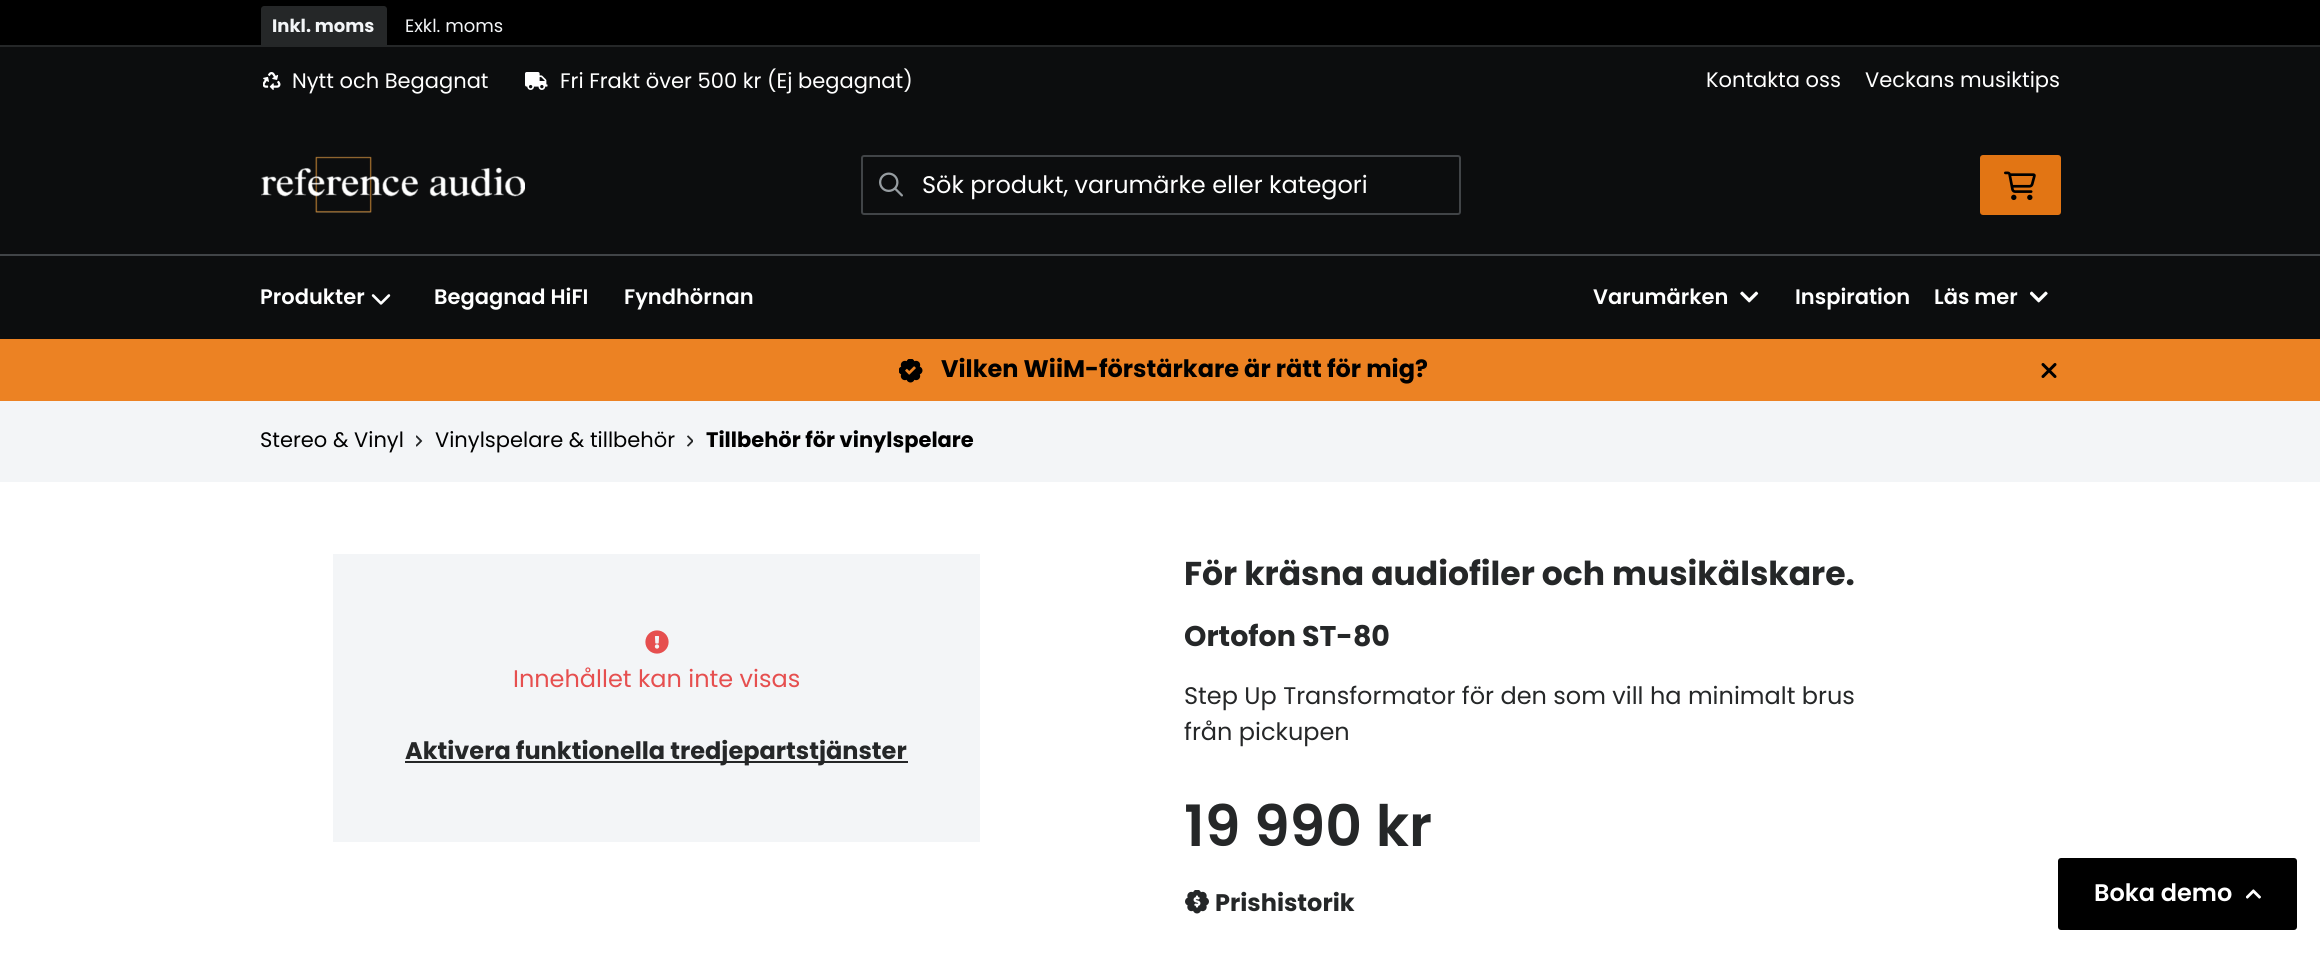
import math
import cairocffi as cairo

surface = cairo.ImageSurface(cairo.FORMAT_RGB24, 2320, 953)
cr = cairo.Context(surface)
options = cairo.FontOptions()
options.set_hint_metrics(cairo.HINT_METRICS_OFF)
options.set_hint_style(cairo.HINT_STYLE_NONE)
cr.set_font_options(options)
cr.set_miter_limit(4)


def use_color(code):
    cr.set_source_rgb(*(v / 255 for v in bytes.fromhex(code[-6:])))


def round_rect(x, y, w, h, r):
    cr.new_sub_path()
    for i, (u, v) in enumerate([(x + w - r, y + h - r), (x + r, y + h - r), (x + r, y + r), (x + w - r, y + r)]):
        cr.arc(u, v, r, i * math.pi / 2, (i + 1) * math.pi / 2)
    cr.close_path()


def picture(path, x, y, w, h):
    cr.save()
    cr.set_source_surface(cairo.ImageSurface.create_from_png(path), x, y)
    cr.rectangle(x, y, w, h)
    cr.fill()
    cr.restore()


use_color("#ffffff")
cr.paint()
use_color("#000000")
cr.rectangle(0, 0, 2320, 45)
cr.fill()
use_color("#252728")
cr.rectangle(0, 45, 2320, 2)
cr.fill()
cr.new_path()
cr.move_to(264, 6)
cr.line_to(384, 6)
cr.curve_to(385.5, 6, 387, 7.5, 387, 9)
cr.line_to(387, 45)
cr.line_to(261, 45)
cr.line_to(261, 9)
cr.curve_to(261, 7.5, 262.5, 6, 264, 6)
cr.close_path()
cr.fill()
cr.select_font_face("Poppins", cairo.FONT_SLANT_NORMAL, cairo.FONT_WEIGHT_BOLD)
cr.set_font_size(18)
use_color("#f3f5f7")
cr.move_to(272, 32)
cr.show_text("Inkl. moms")
cr.select_font_face("Poppins")
cr.move_to(405, 32)
cr.show_text("Exkl. moms")
use_color("#0c0d0e")
cr.rectangle(0, 47, 2320, 207)
cr.fill()
picture("img1.png", 263, 72, 18, 18)
cr.set_font_size(21)
use_color("#ffffff")
cr.move_to(292, 88)
cr.show_text("Nytt och Begagnat")
picture("img2.png", 525, 72, 23, 18)
cr.move_to(560, 88)
cr.show_text("Fri Frakt över 500 kr (Ej begagnat)")
cr.move_to(1706, 87)
cr.show_text("Kontakta oss")
cr.move_to(1865, 87)
cr.show_text("Veckans musiktips")
use_color("#414447")
cr.rectangle(0, 254, 2320, 2)
cr.fill()
picture("img3.png", 261, 156, 264, 57)
round_rect(862, 156, 598, 58, 2)
cr.stroke()
picture("img4.png", 879, 172, 24, 25)
cr.set_font_size(24)
use_color("#ffffff")
cr.move_to(922, 193)
cr.show_text("Sök produkt, varumärke eller kategori")
use_color("#e27514")
round_rect(1980, 155, 81, 60, 3)
cr.fill()
picture("img5.png", 2004, 171, 32, 30)
use_color("#0c0d0e")
cr.rectangle(0, 256, 2320, 83)
cr.fill()
cr.select_font_face("Poppins SemiBold")
cr.set_font_size(21)
use_color("#ffffff")
cr.move_to(260, 304)
cr.show_text("Produkter")
picture("img6.png", 371, 294, 20, 11)
cr.move_to(434, 304)
cr.show_text("Begagnad HiFI")
cr.move_to(624, 304)
cr.show_text("Fyndhörnan")
cr.move_to(1593, 304)
cr.show_text("Varumärken")
picture("img7.png", 1740, 291, 19, 12)
cr.move_to(1795, 304)
cr.show_text("Inspiration")
cr.move_to(1934, 304)
cr.show_text("Läs mer")
picture("img8.png", 2030, 291, 18, 12)
use_color("#ec8223")
cr.rectangle(0, 339, 2320, 62)
cr.fill()
picture("img9.png", 899, 359, 24, 24)
cr.select_font_face("Poppins", cairo.FONT_SLANT_NORMAL, cairo.FONT_WEIGHT_BOLD)
cr.set_font_size(24)
use_color("#000000")
cr.move_to(941, 377)
cr.show_text("Vilken WiiM-förstärkare är rätt för mig?")
picture("img10.png", 2041, 363, 16, 15)
use_color("#f3f5f7")
cr.rectangle(0, 401, 2320, 81)
cr.fill()
cr.select_font_face("Poppins")
cr.set_font_size(21)
use_color("#000000")
cr.move_to(260, 447)
cr.show_text("Stereo & Vinyl")
picture("img11.png", 416, 435, 7, 12)
cr.move_to(435, 447)
cr.show_text("Vinylspelare & tillbehör")
picture("img12.png", 687, 435, 6, 12)
cr.select_font_face("Poppins", cairo.FONT_SLANT_NORMAL, cairo.FONT_WEIGHT_BOLD)
cr.move_to(706, 447)
cr.show_text("Tillbehör för vinylspelare")
use_color("#f3f5f7")
cr.rectangle(333, 554, 647, 288)
cr.fill()
picture("img13.png", 645, 630, 24, 24)
cr.select_font_face("Poppins")
cr.set_font_size(24)
use_color("#e64f4f")
cr.move_to(513, 687)
cr.show_text("Innehållet kan inte visas")
use_color("#252728")
cr.rectangle(405, 761, 503, 2)
cr.fill()
cr.select_font_face("Poppins", cairo.FONT_SLANT_NORMAL, cairo.FONT_WEIGHT_BOLD)
cr.move_to(405, 759)
cr.show_text("Aktivera funktionella tredjepartstjänster")
cr.set_font_size(33)
cr.move_to(1184, 585)
cr.show_text("För kräsna audiofiler och musikälskare.")
cr.set_font_size(28.5)
cr.move_to(1184, 646)
cr.show_text("Ortofon ST-80")
cr.select_font_face("Poppins")
cr.set_font_size(24)
cr.move_to(1184, 704)
cr.show_text("Step Up Transformator för den som vill ha minimalt brus")
cr.move_to(1184, 740)
cr.show_text("från pickupen")
cr.select_font_face("Poppins SemiBold")
cr.set_font_size(57)
cr.move_to(1184, 846)
cr.show_text("19 990 kr")
picture("img14.png", 1185, 890, 24, 24)
cr.select_font_face("Poppins", cairo.FONT_SLANT_NORMAL, cairo.FONT_WEIGHT_BOLD)
cr.set_font_size(24)
cr.move_to(1215, 911)
cr.show_text("Prishistorik")
use_color("#000000")
round_rect(2058, 858, 239, 72, 3)
cr.fill()
cr.select_font_face("Poppins SemiBold")
use_color("#ffffff")
cr.move_to(2094, 901)
cr.show_text("Boka demo")
picture("img15.png", 2246, 889, 15, 10)
surface.write_to_png("result.png")
